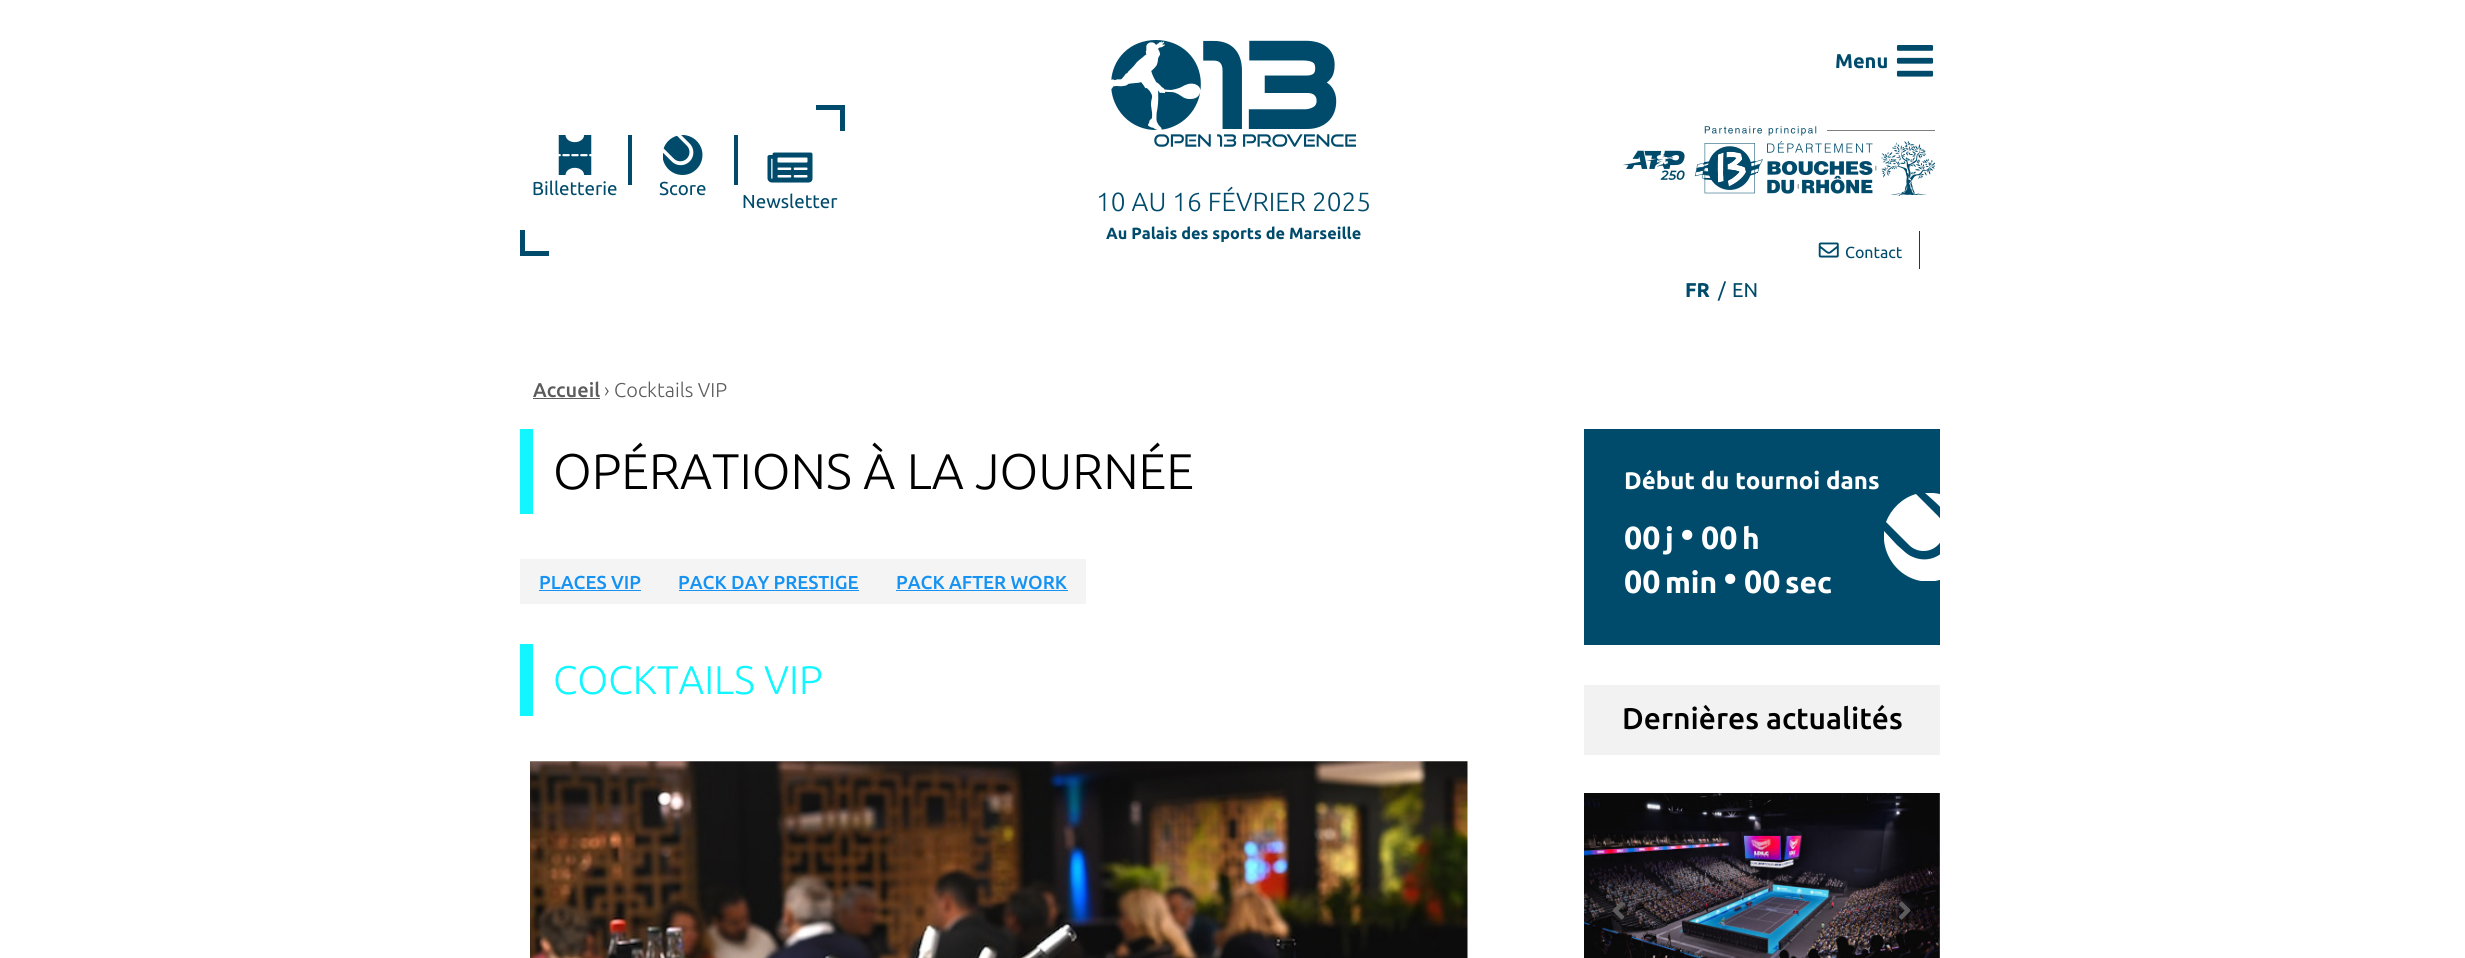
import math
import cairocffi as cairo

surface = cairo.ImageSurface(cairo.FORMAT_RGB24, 2465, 958)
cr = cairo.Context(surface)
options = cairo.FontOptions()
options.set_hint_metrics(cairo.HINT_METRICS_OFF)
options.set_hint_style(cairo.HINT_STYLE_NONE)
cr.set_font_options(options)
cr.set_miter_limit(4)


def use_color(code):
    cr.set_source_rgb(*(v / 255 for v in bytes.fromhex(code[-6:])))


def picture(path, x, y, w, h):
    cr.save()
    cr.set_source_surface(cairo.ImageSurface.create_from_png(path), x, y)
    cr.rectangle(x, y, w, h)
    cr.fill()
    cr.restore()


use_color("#ffffff")
cr.paint()
use_color("#004b6b")
cr.rectangle(816, 105, 29, 5)
cr.fill()
cr.rectangle(840, 105, 5, 26)
cr.fill()
cr.rectangle(628, 135, 4, 50)
cr.fill()
picture("img1.png", 558, 135, 34, 40)
cr.select_font_face("Ubuntu")
cr.set_font_size(18.75)
cr.move_to(532, 195)
cr.show_text("Billetterie")
cr.rectangle(734, 135, 4, 50)
cr.fill()
picture("img2.png", 663, 135, 40, 40)
cr.move_to(659, 195)
cr.show_text("Score")
picture("img3.png", 767, 152, 46, 31)
cr.move_to(742, 208)
cr.show_text("Newsletter")
cr.rectangle(520, 251, 29, 5)
cr.fill()
cr.rectangle(520, 230, 5, 26)
cr.fill()
picture("img4.png", 1111, 40, 245, 107)
cr.select_font_face("Ubuntu Light")
cr.set_font_size(26.25)
cr.move_to(1096, 211)
cr.show_text("10 AU 16 FÉVRIER 2025")
cr.select_font_face("Ubuntu", cairo.FONT_SLANT_NORMAL, cairo.FONT_WEIGHT_BOLD)
cr.set_font_size(16.25)
cr.move_to(1106, 239)
cr.show_text("Au Palais des sports de Marseille")
cr.set_font_size(20)
cr.move_to(1835, 68)
cr.show_text("Menu")
picture("img5.png", 1896, 45, 38, 32)
picture("img6.png", 1623, 126, 312, 70)
use_color("#333333")
cr.rectangle(1919, 231, 1, 38)
cr.fill()
picture("img7.png", 1818, 242, 21, 16)
cr.select_font_face("Ubuntu")
cr.set_font_size(16)
use_color("#004b6b")
cr.move_to(1845, 258)
cr.show_text("Contact")
cr.select_font_face("Ubuntu", cairo.FONT_SLANT_NORMAL, cairo.FONT_WEIGHT_BOLD)
cr.set_font_size(20)
cr.move_to(1685, 297)
cr.show_text("FR")
cr.select_font_face("Ubuntu")
cr.move_to(1718, 297)
cr.show_text("/")
cr.move_to(1732, 297)
cr.show_text("EN")
cr.select_font_face("Ubuntu Medium")
use_color("#5d5c5c")
cr.move_to(533, 397)
cr.show_text("Accueil")
cr.rectangle(533, 398, 67, 1)
cr.fill()
cr.select_font_face("Ubuntu Light")
cr.move_to(604, 397)
cr.show_text("› Cocktails VIP")
use_color("#12f7ff")
cr.rectangle(520, 429, 13, 85)
cr.fill()
cr.set_font_size(50)
use_color("#000000")
cr.move_to(553, 489)
cr.show_text("OPÉRATIONS À LA JOURNÉE")
use_color("#f4f4f4")
cr.rectangle(520, 559, 566, 45)
cr.fill()
cr.select_font_face("Ubuntu Medium")
cr.set_font_size(18.75)
use_color("#1592f2")
cr.move_to(539, 589)
cr.show_text("PLACES VIP")
cr.rectangle(539, 590, 102, 1)
cr.fill()
cr.move_to(678, 589)
cr.show_text("PACK DAY PRESTIGE")
cr.rectangle(679, 590, 180, 1)
cr.fill()
cr.move_to(896, 589)
cr.show_text("PACK AFTER WORK")
cr.rectangle(896, 590, 172, 1)
cr.fill()
use_color("#12f7ff")
cr.rectangle(520, 644, 13, 72)
cr.fill()
cr.select_font_face("Ubuntu Light")
cr.set_font_size(40)
cr.move_to(553, 694)
cr.show_text("COCKTAILS VIP")
picture("img8.png", 530, 761, 938, 197)
use_color("#004b6b")
cr.rectangle(1584, 429, 356, 216)
cr.fill()
cr.save()
cr.rectangle(1884, 493, 56, 88)
cr.clip()
use_color("#ffffff")
cr.new_path()
cr.move_to(1911, 578)
cr.curve_to(1893, 570, 1882, 551, 1884, 531)
cr.line_to(1897, 545)
cr.curve_to(1902, 549, 1907, 555, 1913, 557)
cr.curve_to(1936, 567, 1960, 544, 1950, 520)
cr.curve_to(1946, 511, 1933, 500, 1925, 493)
cr.curve_to(1937, 492, 1948, 495, 1956, 503)
cr.curve_to(1964, 509, 1970, 518, 1972, 528)
cr.curve_to(1979, 563, 1943, 592, 1911, 578)
cr.close_path()
cr.move_to(1909, 545)
cr.line_to(1886, 522)
cr.curve_to(1891, 509, 1902, 498, 1916, 494)
cr.line_to(1938, 516)
cr.curve_to(1946, 524, 1946, 537, 1938, 545)
cr.curve_to(1930, 553, 1917, 553, 1909, 545)
cr.close_path()
cr.fill()
cr.restore()
cr.select_font_face("Ubuntu", cairo.FONT_SLANT_NORMAL, cairo.FONT_WEIGHT_BOLD)
cr.set_font_size(24)
use_color("#ffffff")
cr.move_to(1624, 489)
cr.show_text("Début du tournoi dans")
cr.set_font_size(32)
cr.move_to(1624, 549)
cr.show_text("00")
cr.set_font_size(30)
cr.move_to(1665, 549)
cr.show_text("j")
cr.select_font_face("Ubuntu")
cr.set_font_size(40)
cr.move_to(1680, 549)
cr.show_text("•")
cr.select_font_face("Ubuntu", cairo.FONT_SLANT_NORMAL, cairo.FONT_WEIGHT_BOLD)
cr.set_font_size(32)
cr.move_to(1701, 549)
cr.show_text("00")
cr.set_font_size(30)
cr.move_to(1742, 549)
cr.show_text("h")
cr.set_font_size(32)
cr.move_to(1624, 593)
cr.show_text("00")
cr.set_font_size(30)
cr.move_to(1665, 593)
cr.show_text("min")
cr.select_font_face("Ubuntu")
cr.set_font_size(40)
cr.move_to(1723, 593)
cr.show_text("•")
cr.select_font_face("Ubuntu", cairo.FONT_SLANT_NORMAL, cairo.FONT_WEIGHT_BOLD)
cr.set_font_size(32)
cr.move_to(1744, 593)
cr.show_text("00")
cr.set_font_size(30)
cr.move_to(1785, 593)
cr.show_text("sec")
use_color("#f2f2f2")
cr.rectangle(1584, 685, 356, 70)
cr.fill()
cr.select_font_face("Ubuntu Medium")
use_color("#000000")
cr.move_to(1622, 729)
cr.show_text("Dernières actualités")
picture("img9.png", 1584, 793, 356, 165)
picture("img10.png", 1612, 901, 13, 19)
picture("img11.png", 1899, 901, 12, 19)
surface.write_to_png("result.png")
